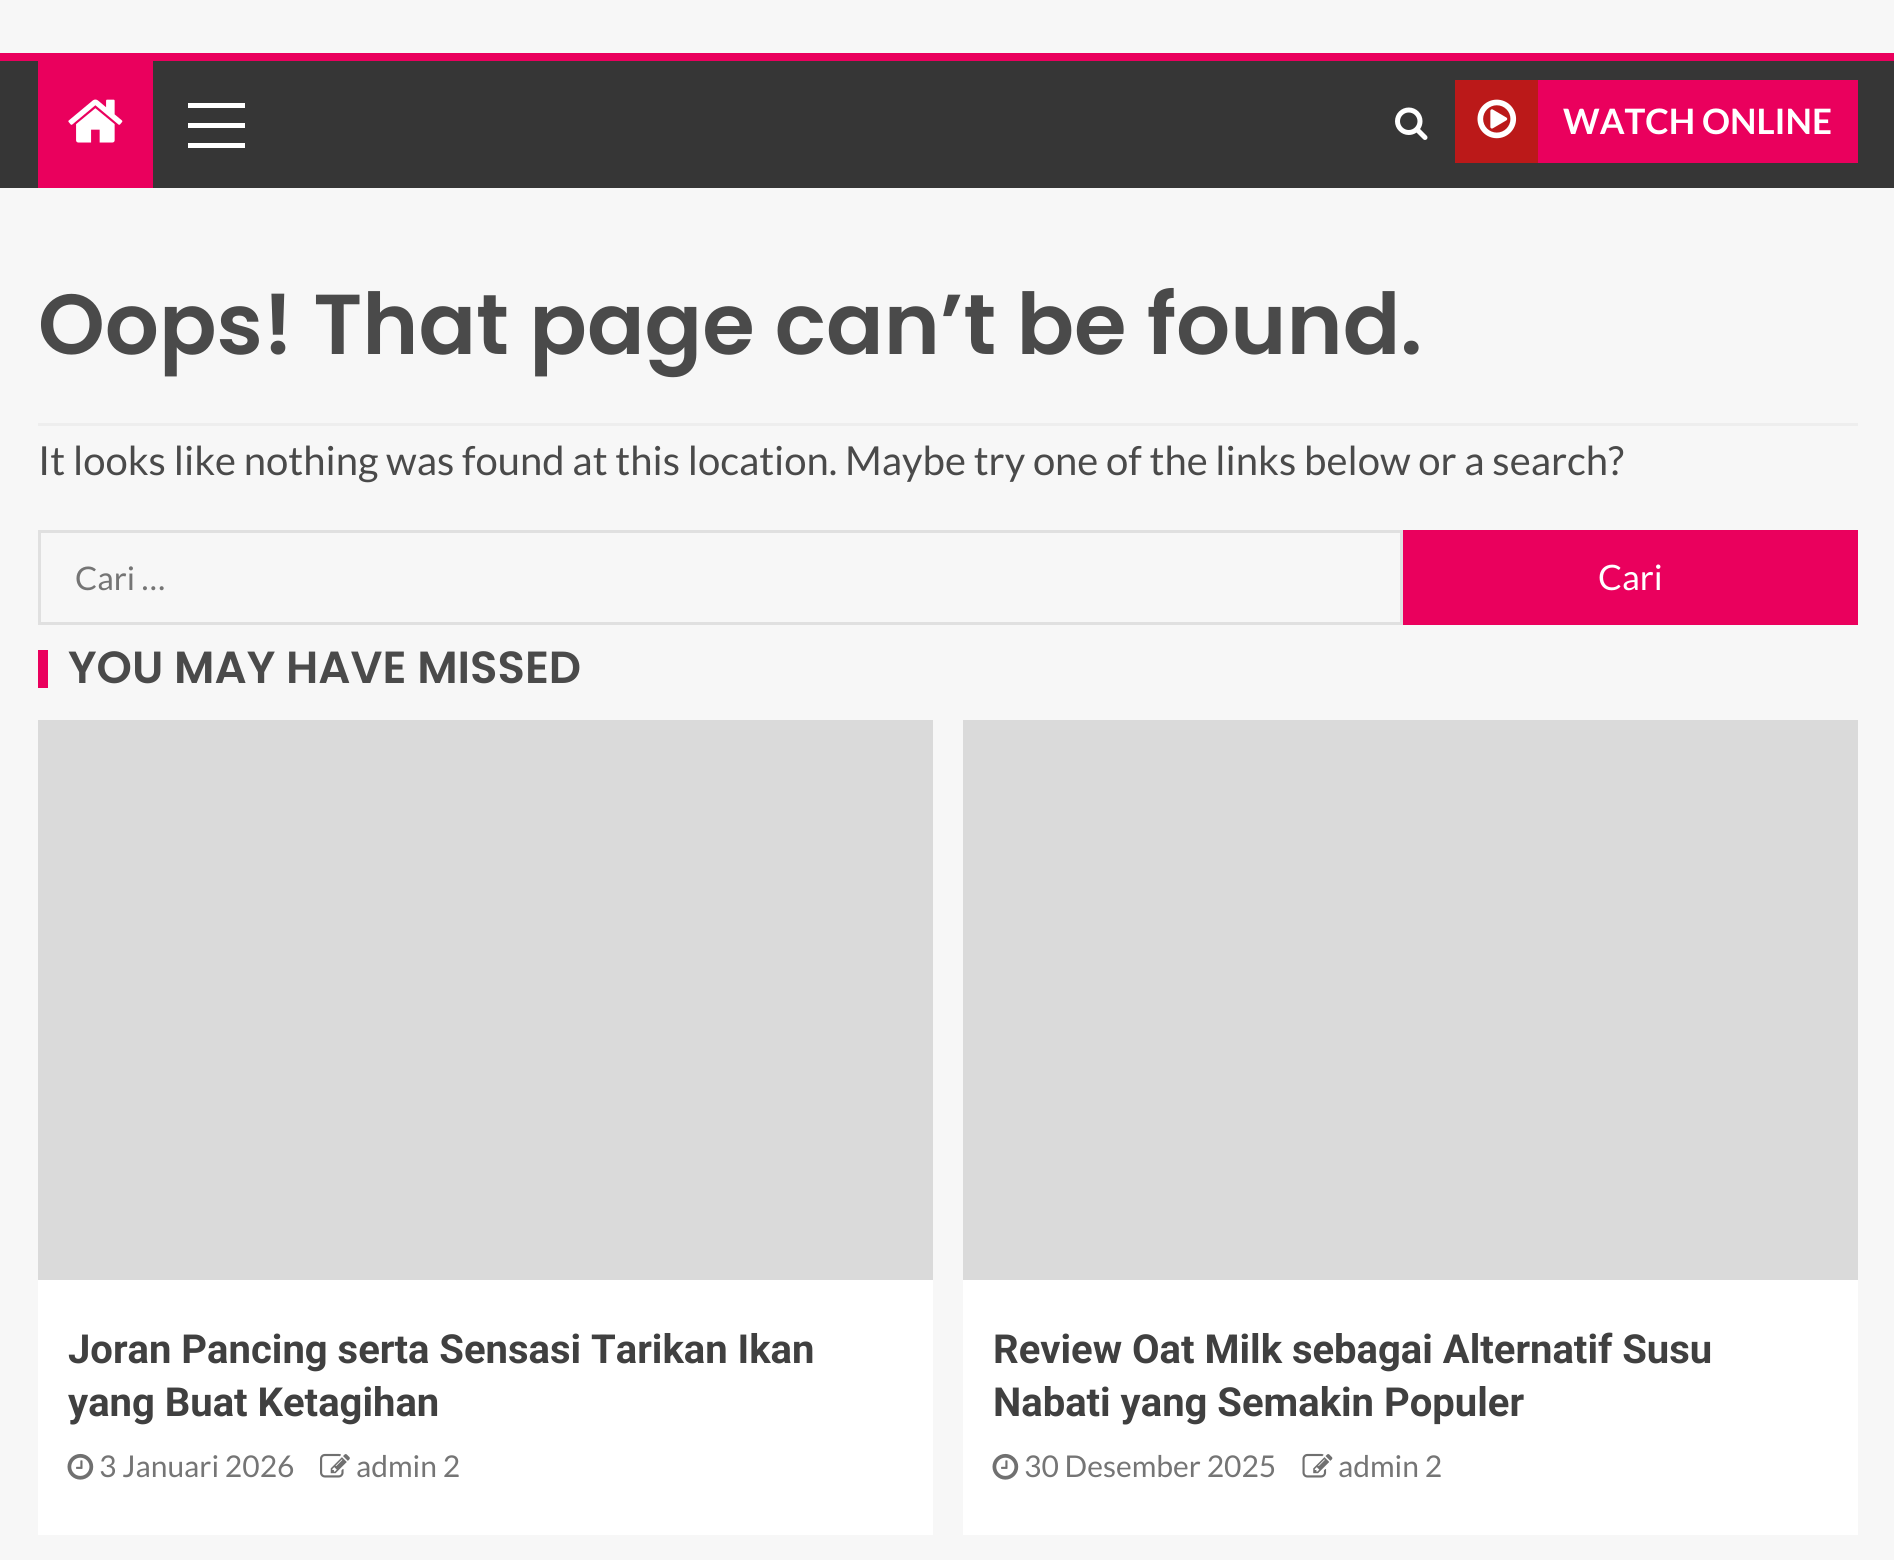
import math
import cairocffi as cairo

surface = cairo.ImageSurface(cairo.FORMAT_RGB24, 1894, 1560)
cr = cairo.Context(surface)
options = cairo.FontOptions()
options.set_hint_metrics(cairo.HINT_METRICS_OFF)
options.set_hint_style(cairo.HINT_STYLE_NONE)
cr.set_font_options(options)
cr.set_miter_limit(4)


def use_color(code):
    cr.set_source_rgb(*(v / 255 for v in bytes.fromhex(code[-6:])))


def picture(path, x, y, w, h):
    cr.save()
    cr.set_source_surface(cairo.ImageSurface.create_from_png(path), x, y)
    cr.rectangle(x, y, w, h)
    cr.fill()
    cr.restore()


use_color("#f7f7f7")
cr.paint()
use_color("#363636")
cr.rectangle(0, 61, 1894, 127)
cr.fill()
use_color("#ea005d")
cr.rectangle(0, 53, 1894, 8)
cr.fill()
cr.rectangle(38, 61, 115, 127)
cr.fill()
picture("img1.png", 68, 99, 55, 44)
use_color("#ffffff")
cr.rectangle(188, 123, 57, 5)
cr.fill()
cr.rectangle(188, 103, 57, 5)
cr.fill()
cr.rectangle(188, 143, 57, 5)
cr.fill()
picture("img2.png", 1395, 107, 33, 33)
use_color("#bb1919")
cr.rectangle(1455, 80, 83, 83)
cr.fill()
picture("img3.png", 1477, 99, 40, 40)
use_color("#ea005d")
cr.rectangle(1538, 80, 320, 83)
cr.fill()
cr.select_font_face("Lato", cairo.FONT_SLANT_NORMAL, cairo.FONT_WEIGHT_BOLD)
cr.set_font_size(35)
use_color("#ffffff")
cr.move_to(1563, 134)
cr.show_text("WATCH ONLINE")
use_color("#eeeeee")
cr.rectangle(38, 423, 1820, 3)
cr.fill()
cr.select_font_face("Poppins SemiBold")
cr.set_font_size(85)
use_color("#4a4a4a")
cr.move_to(38, 354)
cr.show_text("Oops! That page can’t be found.")
cr.select_font_face("Lato")
cr.set_font_size(40)
cr.move_to(38, 475)
cr.show_text("It looks like nothing was found at this location. Maybe try one of the links below or a search?")
cr.rectangle(39.5, 531.5, 1362, 92)
use_color("#e0e0e0")
cr.set_line_width(3)
cr.stroke()
cr.set_font_size(32.5)
use_color("#757575")
cr.move_to(75, 590)
cr.show_text("Cari …")
use_color("#ea005d")
cr.rectangle(1403, 530, 455, 95)
cr.fill()
cr.set_font_size(35)
use_color("#ffffff")
cr.move_to(1598, 590)
cr.show_text("Cari")
use_color("#ea005d")
cr.rectangle(38, 650, 10, 38)
cr.fill()
cr.select_font_face("Poppins SemiBold")
cr.set_font_size(45)
use_color("#4a4a4a")
cr.move_to(68, 683)
cr.show_text("YOU MAY HAVE MISSED")
use_color("#dadada")
cr.rectangle(38, 720, 895, 560)
cr.fill()
use_color("#ffffff")
cr.rectangle(38, 1280, 895, 255)
cr.fill()
cr.select_font_face("Roboto", cairo.FONT_SLANT_NORMAL, cairo.FONT_WEIGHT_BOLD)
cr.set_font_size(40)
use_color("#404040")
cr.move_to(68, 1363)
cr.show_text("Joran Pancing serta Sensasi Tarikan Ikan")
cr.move_to(68, 1416)
cr.show_text("yang Buat Ketagihan")
picture("img4.png", 67, 1453, 27, 27)
cr.select_font_face("Lato")
cr.set_font_size(30)
use_color("#757575")
cr.move_to(99, 1477)
cr.show_text("3 Januari 2026")
picture("img5.png", 320, 1453, 30, 25)
cr.move_to(356, 1477)
cr.show_text("admin 2")
use_color("#dadada")
cr.rectangle(963, 720, 895, 560)
cr.fill()
use_color("#ffffff")
cr.rectangle(963, 1280, 895, 255)
cr.fill()
cr.select_font_face("Roboto", cairo.FONT_SLANT_NORMAL, cairo.FONT_WEIGHT_BOLD)
cr.set_font_size(40)
use_color("#404040")
cr.move_to(993, 1363)
cr.show_text("Review Oat Milk sebagai Alternatif Susu")
cr.move_to(993, 1416)
cr.show_text("Nabati yang Semakin Populer")
picture("img4.png", 992, 1453, 27, 27)
cr.select_font_face("Lato")
cr.set_font_size(30)
use_color("#757575")
cr.move_to(1024, 1477)
cr.show_text("30 Desember 2025")
picture("img6.png", 1302, 1453, 31, 25)
cr.move_to(1338, 1477)
cr.show_text("admin 2")
surface.write_to_png("result.png")
